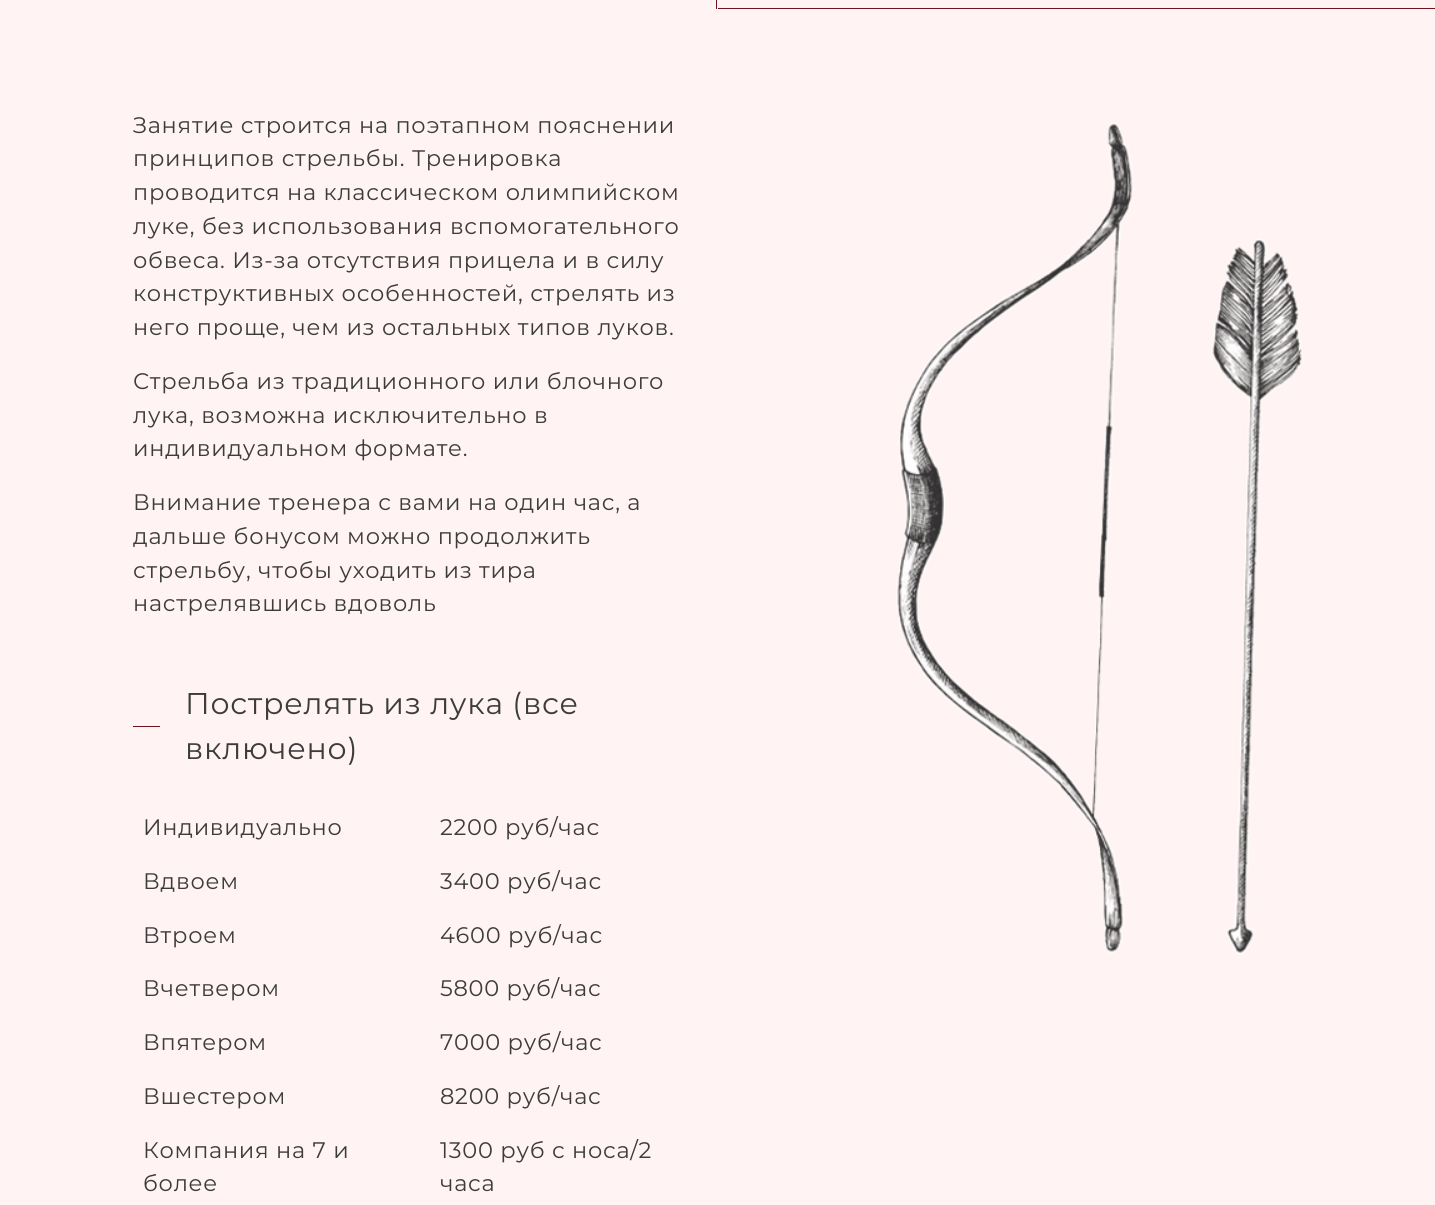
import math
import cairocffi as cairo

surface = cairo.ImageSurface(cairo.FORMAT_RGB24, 1435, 1205)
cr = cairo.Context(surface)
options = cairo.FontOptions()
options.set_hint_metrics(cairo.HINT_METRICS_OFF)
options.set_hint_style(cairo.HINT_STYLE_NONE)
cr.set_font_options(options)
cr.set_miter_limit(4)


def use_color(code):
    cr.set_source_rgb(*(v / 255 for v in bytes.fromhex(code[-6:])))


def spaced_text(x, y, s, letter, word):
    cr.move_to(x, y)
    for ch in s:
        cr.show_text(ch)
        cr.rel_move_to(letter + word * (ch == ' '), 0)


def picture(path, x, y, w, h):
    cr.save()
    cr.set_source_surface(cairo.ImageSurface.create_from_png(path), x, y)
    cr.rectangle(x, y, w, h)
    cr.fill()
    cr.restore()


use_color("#fff3f3")
cr.paint()
use_color("#71131c")
cr.rectangle(716, 0, 1, 9)
cr.fill()
cr.rectangle(718, 8, 717, 1)
cr.fill()
cr.select_font_face("Montserrat")
cr.set_font_size(22.5)
use_color("#3c3c3c")
spaced_text(133, 133, "Занятие строится на поэтапном пояснении", 0.75, 0)
spaced_text(133, 166, "принципов стрельбы. Тренировка", 0.75, 0)
spaced_text(133, 200, "проводится на классическом олимпийском", 0.75, 0)
spaced_text(133, 234, "луке, без использования вспомогательного", 0.75, 0)
spaced_text(133, 268, "обвеса. Из-за отсутствия прицела и в силу", 0.75, 0)
spaced_text(133, 301, "конструктивных особенностей, стрелять из", 0.75, 0)
spaced_text(133, 335, "него проще, чем из остальных типов луков.", 0.75, 0)
spaced_text(133, 389, "Стрельба из традиционного или блочного", 0.75, 0)
spaced_text(133, 423, "лука, возможна исключительно в", 0.75, 0)
spaced_text(133, 456, "индивидуальном формате.", 0.75, 0)
spaced_text(133, 510, "Внимание тренера с вами на один час, а", 0.75, 0)
spaced_text(133, 544, "дальше бонусом можно продолжить", 0.75, 0)
spaced_text(133, 578, "стрельбу, чтобы уходить из тира", 0.75, 0)
spaced_text(133, 611, "настрелявшись вдоволь", 0.75, 0)
use_color("#71131c")
cr.rectangle(133, 726, 27, 1)
cr.fill()
cr.set_font_size(30)
use_color("#3c3c3c")
spaced_text(185, 714, "Пострелять из лука (все", 0.75, 0)
spaced_text(185, 759, "включено)", 0.75, 0)
cr.set_font_size(22.5)
spaced_text(143, 835, "Индивидуально", 0.75, 0)
spaced_text(440, 835, "2200 руб/час", 0.75, 0)
spaced_text(143, 889, "Вдвоем", 0.75, 0)
spaced_text(440, 889, "3400 руб/час", 0.75, 0)
spaced_text(143, 943, "Втроем", 0.75, 0)
spaced_text(440, 943, "4600 руб/час", 0.75, 0)
spaced_text(143, 996, "Вчетвером", 0.75, 0)
spaced_text(440, 996, "5800 руб/час", 0.75, 0)
spaced_text(143, 1050, "Впятером", 0.75, 0)
spaced_text(440, 1050, "7000 руб/час", 0.75, 0)
spaced_text(143, 1104, "Вшестером", 0.75, 0)
spaced_text(440, 1104, "8200 руб/час", 0.75, 0)
spaced_text(143, 1158, "Компания на 7 и", 0.75, 0)
spaced_text(143, 1191, "более", 0.75, 0)
spaced_text(440, 1158, "1300 руб с носа/2", 0.75, 0)
spaced_text(440, 1191, "часа", 0.75, 0)
picture("img1.png", 896, 122, 407, 833)
surface.write_to_png("result.png")
